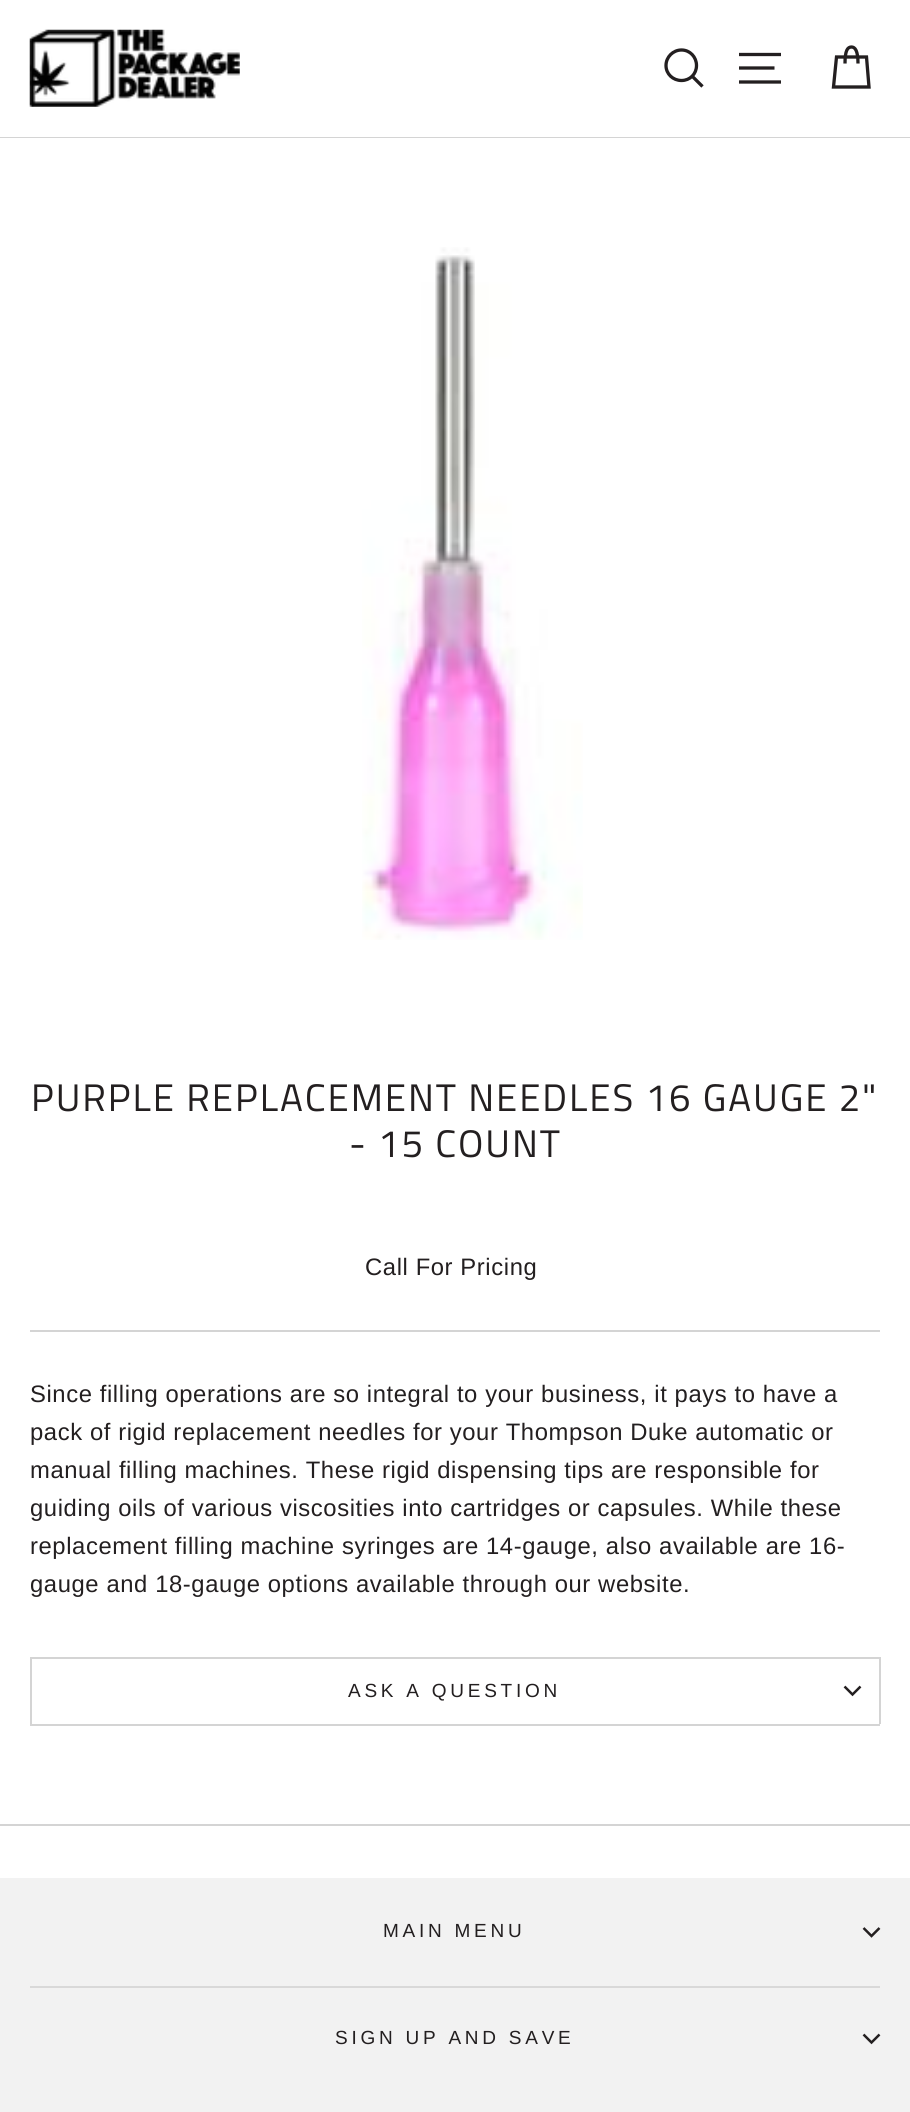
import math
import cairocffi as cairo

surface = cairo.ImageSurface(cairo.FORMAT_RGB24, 910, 2112)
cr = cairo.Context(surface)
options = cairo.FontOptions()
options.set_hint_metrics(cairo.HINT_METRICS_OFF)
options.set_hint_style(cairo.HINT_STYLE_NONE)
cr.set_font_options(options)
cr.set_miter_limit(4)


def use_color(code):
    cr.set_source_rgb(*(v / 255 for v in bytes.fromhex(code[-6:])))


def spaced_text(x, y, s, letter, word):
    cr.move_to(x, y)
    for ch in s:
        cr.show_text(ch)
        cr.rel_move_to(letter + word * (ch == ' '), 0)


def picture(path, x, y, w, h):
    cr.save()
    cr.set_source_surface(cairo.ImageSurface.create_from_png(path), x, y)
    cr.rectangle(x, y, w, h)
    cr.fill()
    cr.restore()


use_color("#ffffff")
cr.paint()
use_color("#d4d4d4")
cr.rectangle(0, 137, 910, 1)
cr.fill()
picture("img1.png", 29, 29, 211, 78)
cr.new_path()
cr.move_to(696.5, 65.5)
cr.curve_to(696.5, 74, 690, 80.5, 681.5, 80.5)
cr.curve_to(673, 80.5, 666, 74, 666, 65.5)
cr.curve_to(666, 57, 673, 50, 681.5, 50)
cr.curve_to(690, 50, 696.5, 57, 696.5, 65.5)
cr.close_path()
cr.move_to(702.5, 86.5)
cr.line_to(692.5, 76.5)
use_color("#231f20")
cr.set_line_width(3.3)
cr.stroke()
cr.new_path()
cr.move_to(739, 54.5)
cr.line_to(781, 54.5)
cr.move_to(739, 68)
cr.line_to(774.5, 68)
cr.move_to(739, 82)
cr.line_to(781, 82)
cr.stroke()
cr.new_path()
cr.move_to(845, 63.5)
cr.curve_to(845, 50.5, 847.5, 47, 851.5, 47)
cr.curve_to(855, 47, 858, 50.5, 858, 63.5)
cr.move_to(836.5, 57)
cr.line_to(866.5, 57)
cr.line_to(869, 87)
cr.line_to(833.5, 87)
cr.close_path()
cr.stroke()
picture("img2.png", 362, 247, 221, 693)
cr.select_font_face("Titillium Web")
cr.set_font_size(38.4)
spaced_text(31, 1111, "PURPLE REPLACEMENT NEEDLES 16 GAUGE 2\"", 1.9, 0)
spaced_text(349, 1157, "- 15 COUNT", 1.9, 0)
cr.select_font_face("Arimo")
cr.set_font_size(23.8)
spaced_text(365, 1275, "Call For Pricing", 0.6, 0)
use_color("#d4d4d4")
cr.rectangle(30, 1330, 850, 2)
cr.fill()
use_color("#231f20")
spaced_text(30, 1402, "Since filling operations are so integral to your business, it pays to have a", 0.6, 0)
spaced_text(30, 1440, "pack of rigid replacement needles for your Thompson Duke automatic or", 0.6, 0)
spaced_text(30, 1478, "manual filling machines. These rigid dispensing tips are responsible for", 0.6, 0)
spaced_text(30, 1516, "guiding oils of various viscosities into cartridges or capsules. While these", 0.6, 0)
spaced_text(30, 1554, "replacement filling machine syringes are 14-gauge, also available are 16-", 0.6, 0)
spaced_text(30, 1592, "gauge and 18-gauge options available through our website.", 0.6, 0)
use_color("#d4d4d4")
cr.rectangle(30, 1724, 850, 2)
cr.fill()
cr.rectangle(30, 1657, 850, 2)
cr.fill()
cr.rectangle(879, 1657, 2, 67)
cr.fill()
cr.rectangle(30, 1657, 2, 67)
cr.fill()
cr.set_font_size(19)
use_color("#231f20")
spaced_text(348, 1697, "ASK A QUESTION", 3.75, 0)
cr.new_path()
cr.move_to(844.5, 1686.5)
cr.line_to(852.5, 1694.5)
cr.line_to(860.5, 1686.5)
cr.set_line_width(2.5)
cr.stroke()
use_color("#d4d4d4")
cr.rectangle(0, 1824, 910, 2)
cr.fill()
use_color("#f2f2f2")
cr.rectangle(0, 1878, 910, 234)
cr.fill()
use_color("#231f20")
spaced_text(383, 1937, "MAIN MENU", 3.75, 0)
cr.new_path()
cr.move_to(863.5, 1928)
cr.line_to(871.5, 1936)
cr.line_to(879.5, 1928)
cr.stroke()
use_color("#d9d9d9")
cr.rectangle(30, 1986, 850, 2)
cr.fill()
use_color("#231f20")
spaced_text(335, 2044, "SIGN UP AND SAVE", 3.75, 0)
cr.new_path()
cr.move_to(863.5, 2034.5)
cr.line_to(871.5, 2042.5)
cr.line_to(879.5, 2034.5)
cr.stroke()
surface.write_to_png("result.png")
